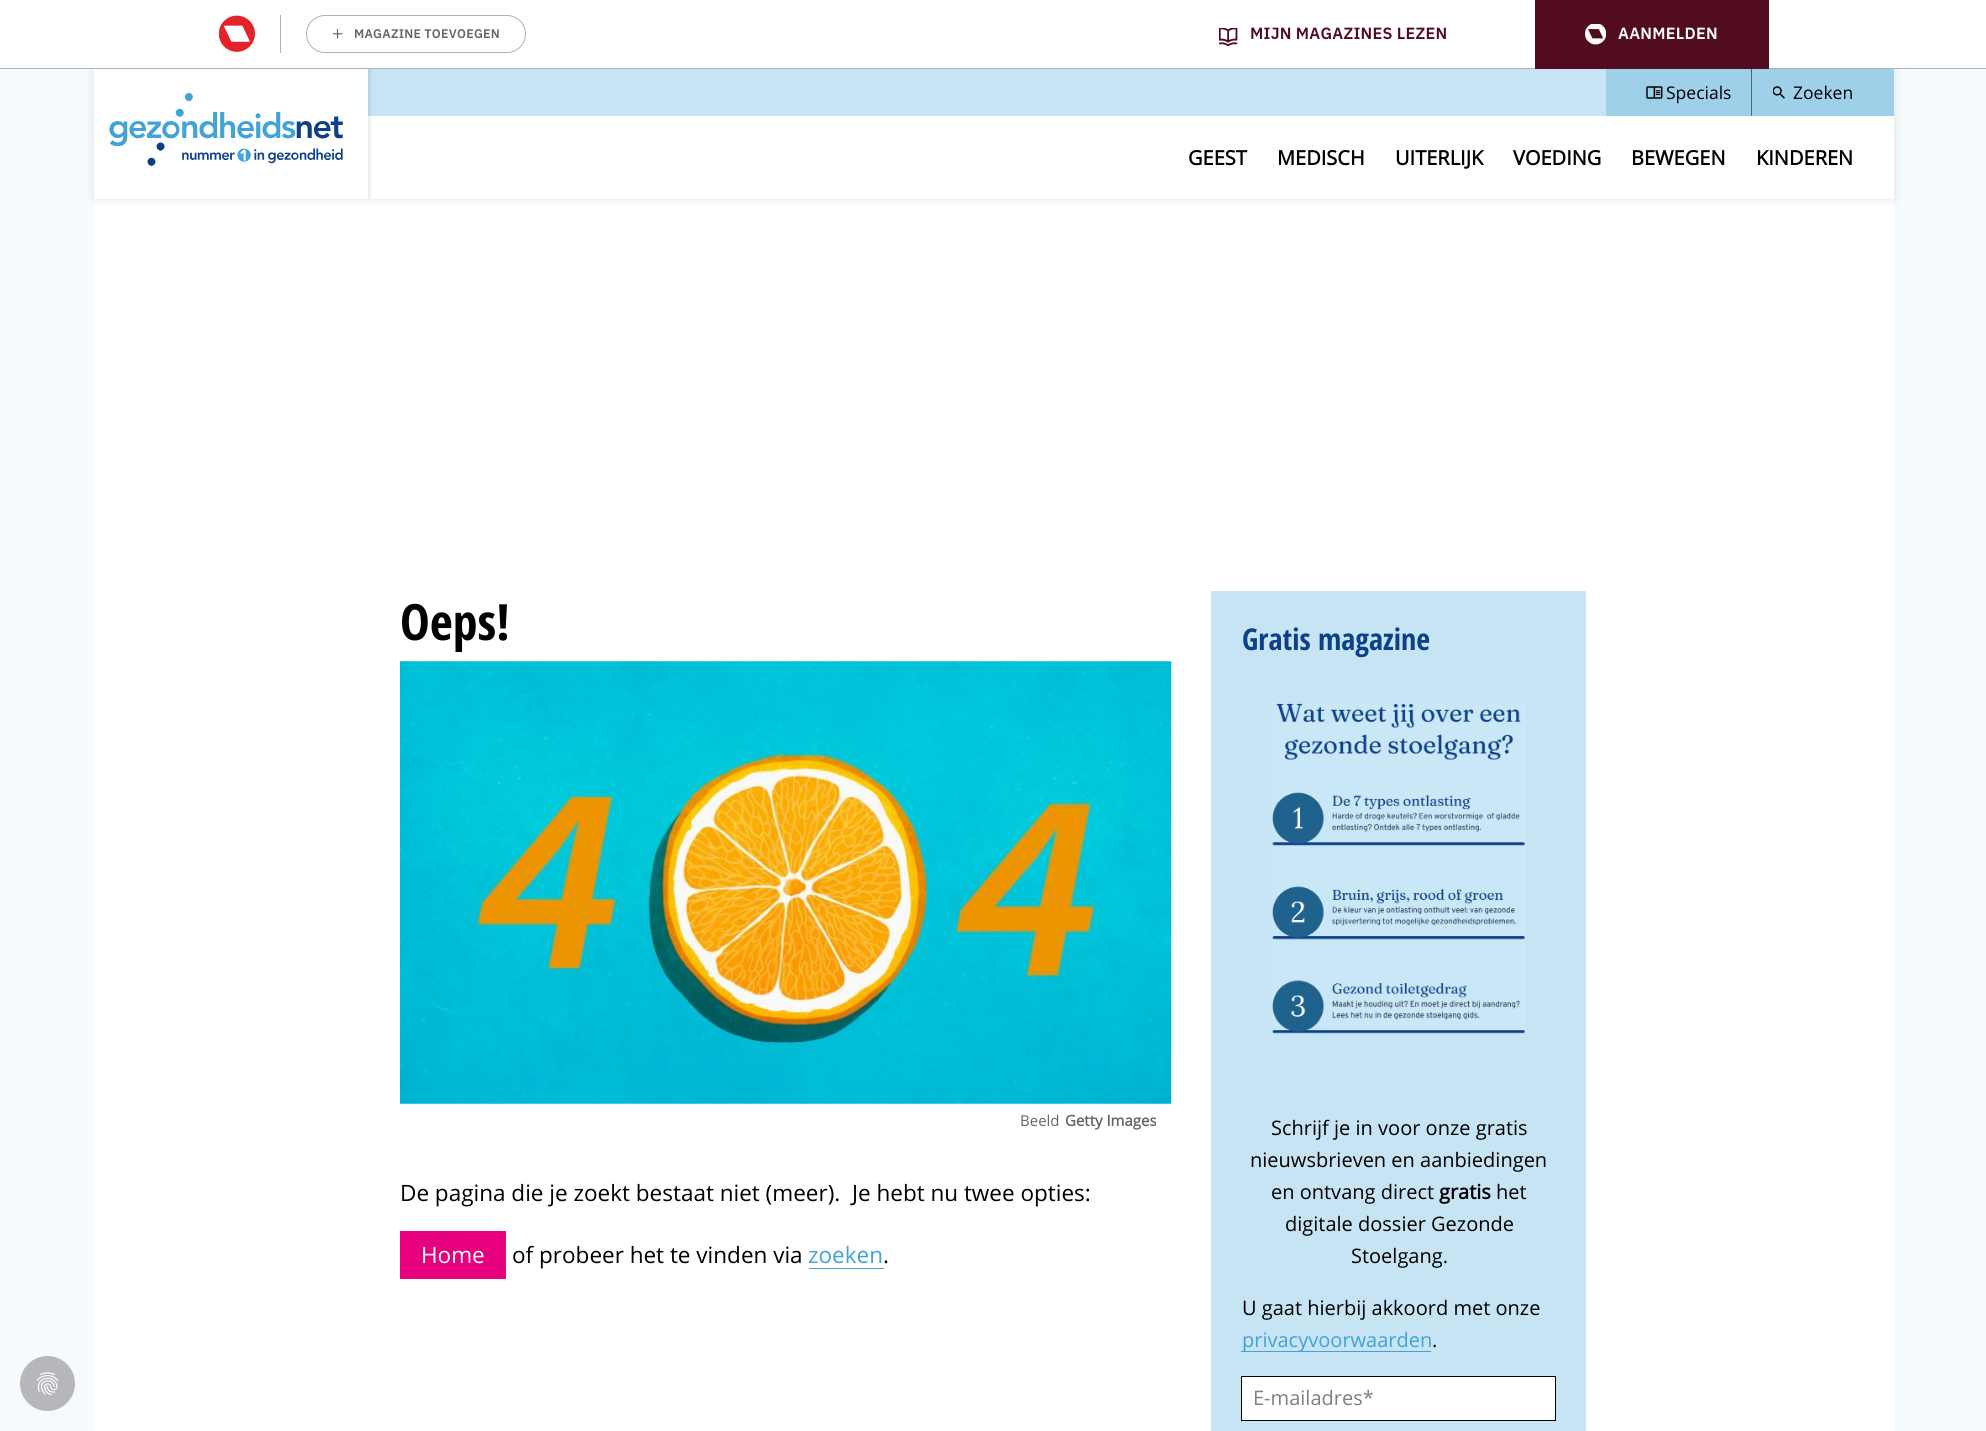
import math
import cairocffi as cairo

surface = cairo.ImageSurface(cairo.FORMAT_RGB24, 1986, 1431)
cr = cairo.Context(surface)
options = cairo.FontOptions()
options.set_hint_metrics(cairo.HINT_METRICS_OFF)
options.set_hint_style(cairo.HINT_STYLE_NONE)
cr.set_font_options(options)
cr.set_miter_limit(4)


def use_color(code):
    cr.set_source_rgb(*(v / 255 for v in bytes.fromhex(code[-6:])))


def spaced_text(x, y, s, letter, word):
    cr.move_to(x, y)
    for ch in s:
        cr.show_text(ch)
        cr.rel_move_to(letter + word * (ch == ' '), 0)


def round_rect(x, y, w, h, r):
    cr.new_sub_path()
    for i, (u, v) in enumerate([(x + w - r, y + h - r), (x + r, y + h - r), (x + r, y + r), (x + w - r, y + r)]):
        cr.arc(u, v, r, i * math.pi / 2, (i + 1) * math.pi / 2)
    cr.close_path()


def shadow(x, y, w, h, r, blur, alpha):
    cr.push_group_with_content(cairo.CONTENT_ALPHA)
    cr.set_operator(cairo.OPERATOR_SOURCE)
    for i in range(15, -16, -2):
        e = blur * i / 6
        if min(w, h) + 2 * e > 0:
            cr.set_source_rgba(0, 0, 0, alpha * math.erfc((i - 1) / 8.5) / 2)
            round_rect(x - e, y - e, w + 2 * e, h + 2 * e, max(0, min(r + e + blur * .6, min(w, h) / 2 + e)))
            cr.fill()
    cr.mask(cr.pop_group())


def picture(path, x, y, w, h):
    cr.save()
    cr.set_source_surface(cairo.ImageSurface.create_from_png(path), x, y)
    cr.rectangle(x, y, w, h)
    cr.fill()
    cr.restore()


use_color("#f5fafd")
cr.paint()
use_color("#ffffff")
cr.rectangle(94, 69, 1800, 1362)
cr.fill()
cr.save()
cr.set_fill_rule(cairo.FILL_RULE_EVEN_ODD)
cr.new_path()
cr.move_to(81, 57)
cr.line_to(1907, 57)
cr.line_to(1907, 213)
cr.line_to(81, 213)
cr.close_path()
cr.move_to(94, 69)
cr.line_to(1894, 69)
cr.line_to(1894, 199)
cr.line_to(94, 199)
cr.close_path()
cr.clip()
use_color("#000000")
shadow(94, 70, 1800, 130, 0, 4, 0.1)
cr.restore()
cr.rectangle(0, 0, 1986, 68)
cr.fill()
use_color("#b2b2b2")
cr.rectangle(0, 68, 1986, 1)
cr.fill()
use_color("#b2b1b1")
cr.rectangle(280, 15, 1, 38)
cr.fill()
picture("img1.png", 219, 15, 36, 37)
round_rect(306.5, 15.5, 219, 37, 18.5)
cr.set_line_width(1)
cr.stroke()
picture("img2.png", 333, 29, 10, 10)
cr.select_font_face("IBM Plex Sans SemiBold")
cr.set_font_size(12.5)
use_color("#666666")
spaced_text(354, 38, "MAGAZINE TOEVOEGEN", 0.25, 0)
picture("img3.png", 1219, 28, 19, 18)
cr.set_font_size(16.25)
use_color("#520c20")
spaced_text(1250, 39, "MIJN MAGAZINES LEZEN", 0.25, 0)
cr.rectangle(1535, 0, 234, 69)
cr.fill()
picture("img4.png", 1585, 24, 21, 21)
use_color("#ffffff")
spaced_text(1618, 39, "AANMELDEN", 0.25, 0)
picture("img5.png", 109, 93, 234, 73)
use_color("#c6e4f3")
cr.rectangle(368, 69, 1238, 47)
cr.fill()
gradient = cairo.LinearGradient(368, 134, 373, 134)
gradient.add_color_stop_rgba(0, 0, 0, 0, 0.08)
gradient.add_color_stop_rgba(1, 0, 0, 0, 0)
cr.set_source(gradient)
cr.rectangle(368, 69, 4, 130)
cr.fill()
use_color("#9fd0ea")
cr.rectangle(1606, 69, 288, 47)
cr.fill()
picture("img6.png", 1646, 86, 17, 13)
cr.select_font_face("Open Sans")
cr.set_font_size(17.5)
use_color("#000000")
cr.move_to(1666, 99)
cr.show_text("Specials")
use_color("#506875")
cr.rectangle(1751, 69, 1, 47)
cr.fill()
picture("img7.png", 1773, 86, 12, 13)
use_color("#000000")
cr.move_to(1793, 99)
cr.show_text("Zoeken")
cr.select_font_face("Open Sans", cairo.FONT_SLANT_NORMAL, cairo.FONT_WEIGHT_BOLD)
cr.set_font_size(20)
cr.move_to(1188, 165)
cr.show_text("GEEST")
cr.move_to(1277, 165)
cr.show_text("MEDISCH")
cr.move_to(1395, 165)
cr.show_text("UITERLIJK")
cr.move_to(1513, 165)
cr.show_text("VOEDING")
cr.move_to(1631, 165)
cr.show_text("BEWEGEN")
cr.move_to(1756, 165)
cr.show_text("KINDEREN")
use_color("#b7b7bb")
cr.new_path()
cr.arc(47.5, 1383.5, 27.5, 0, 2 * math.pi)
cr.fill()
picture("img8.png", 36, 1372, 23, 24)
cr.select_font_face("Open Sans Condensed", cairo.FONT_SLANT_NORMAL, cairo.FONT_WEIGHT_BOLD)
cr.set_font_size(50)
use_color("#000000")
cr.move_to(400, 640)
cr.show_text("Oeps!")
picture("img9.png", 400, 661, 772, 443)
cr.select_font_face("Open Sans")
cr.set_font_size(15)
use_color("#666666")
cr.move_to(1020, 1126)
cr.show_text("Beeld")
cr.select_font_face("Open Sans", cairo.FONT_SLANT_NORMAL, cairo.FONT_WEIGHT_BOLD)
cr.move_to(1065, 1126)
cr.show_text("Getty Images")
cr.select_font_face("Open Sans")
cr.set_font_size(22.5)
use_color("#000000")
cr.move_to(400, 1201)
cr.show_text("De pagina die je zoekt bestaat niet (meer).  Je hebt nu twee opties:")
use_color("#e6007d")
cr.rectangle(400, 1231, 106, 48)
cr.fill()
use_color("#ffffff")
cr.move_to(421, 1263)
cr.show_text("Home")
use_color("#000000")
cr.move_to(512, 1263)
cr.show_text("of probeer het te vinden via")
use_color("#41a3d7")
cr.move_to(808, 1263)
cr.show_text("zoeken")
cr.rectangle(809, 1268, 75, 1)
cr.fill()
use_color("#000000")
cr.move_to(883, 1263)
cr.show_text(".")
use_color("#c6e4f3")
cr.rectangle(1211, 591, 375, 840)
cr.fill()
cr.select_font_face("Open Sans Condensed", cairo.FONT_SLANT_NORMAL, cairo.FONT_WEIGHT_BOLD)
cr.set_font_size(30)
use_color("#0d408a")
cr.move_to(1242, 650)
cr.show_text("Gratis magazine")
picture("img10.png", 1272, 703, 254, 331)
cr.select_font_face("Open Sans")
cr.set_font_size(20)
use_color("#000000")
cr.move_to(1271, 1135)
cr.show_text("Schrijf je in voor onze gratis")
cr.move_to(1250, 1167)
cr.show_text("nieuwsbrieven en aanbiedingen")
cr.move_to(1271, 1199)
cr.show_text("en ontvang direct")
cr.select_font_face("Open Sans", cairo.FONT_SLANT_NORMAL, cairo.FONT_WEIGHT_BOLD)
cr.move_to(1439, 1199)
cr.show_text("gratis")
cr.select_font_face("Open Sans")
cr.move_to(1496, 1199)
cr.show_text("het")
cr.move_to(1285, 1231)
cr.show_text("digitale dossier Gezonde")
cr.move_to(1351, 1263)
cr.show_text("Stoelgang.")
cr.move_to(1242, 1315)
cr.show_text("U gaat hierbij akkoord met onze")
use_color("#41a3d7")
cr.rectangle(1241, 1351, 190, 1)
cr.fill()
cr.move_to(1242, 1347)
cr.show_text("privacyvoorwaarden")
use_color("#000000")
cr.move_to(1432, 1347)
cr.show_text(".")
use_color("#ffffff")
cr.rectangle(1241.5, 1376.5, 314, 44)
cr.fill_preserve()
use_color("#000000")
cr.stroke()
use_color("#808080")
cr.move_to(1253, 1405)
cr.show_text("E-mailadres*")
surface.write_to_png("result.png")
